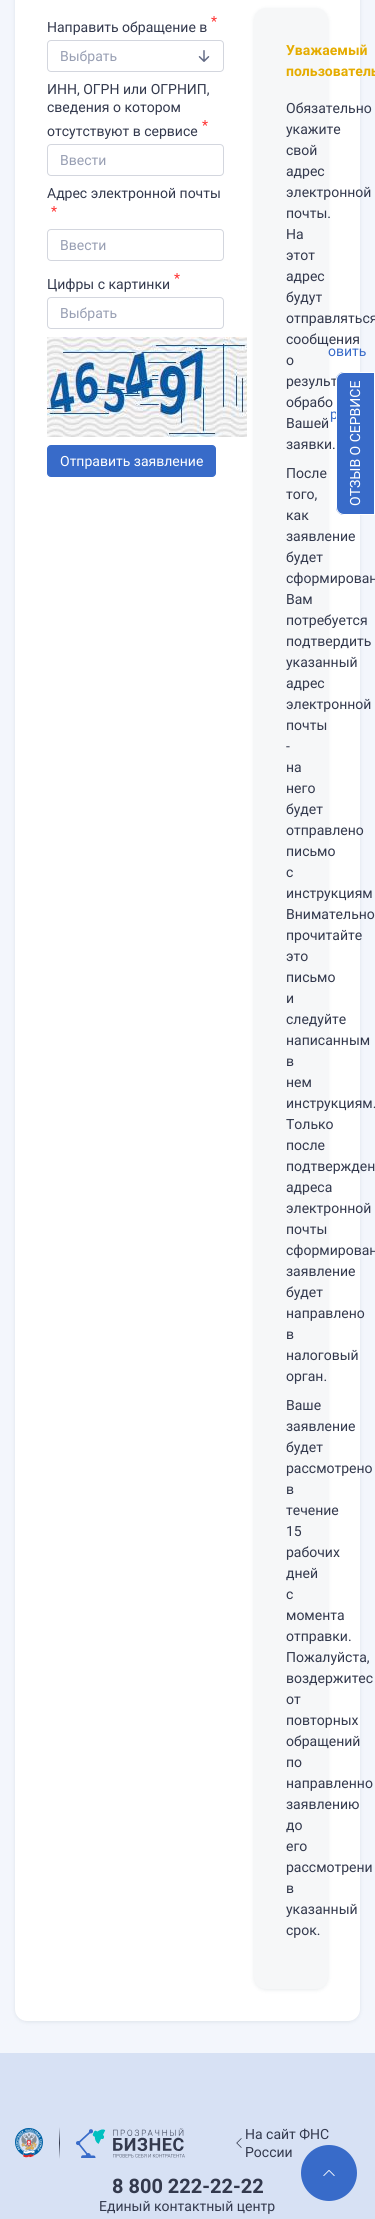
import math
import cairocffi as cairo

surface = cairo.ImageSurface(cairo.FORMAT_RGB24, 375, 2219)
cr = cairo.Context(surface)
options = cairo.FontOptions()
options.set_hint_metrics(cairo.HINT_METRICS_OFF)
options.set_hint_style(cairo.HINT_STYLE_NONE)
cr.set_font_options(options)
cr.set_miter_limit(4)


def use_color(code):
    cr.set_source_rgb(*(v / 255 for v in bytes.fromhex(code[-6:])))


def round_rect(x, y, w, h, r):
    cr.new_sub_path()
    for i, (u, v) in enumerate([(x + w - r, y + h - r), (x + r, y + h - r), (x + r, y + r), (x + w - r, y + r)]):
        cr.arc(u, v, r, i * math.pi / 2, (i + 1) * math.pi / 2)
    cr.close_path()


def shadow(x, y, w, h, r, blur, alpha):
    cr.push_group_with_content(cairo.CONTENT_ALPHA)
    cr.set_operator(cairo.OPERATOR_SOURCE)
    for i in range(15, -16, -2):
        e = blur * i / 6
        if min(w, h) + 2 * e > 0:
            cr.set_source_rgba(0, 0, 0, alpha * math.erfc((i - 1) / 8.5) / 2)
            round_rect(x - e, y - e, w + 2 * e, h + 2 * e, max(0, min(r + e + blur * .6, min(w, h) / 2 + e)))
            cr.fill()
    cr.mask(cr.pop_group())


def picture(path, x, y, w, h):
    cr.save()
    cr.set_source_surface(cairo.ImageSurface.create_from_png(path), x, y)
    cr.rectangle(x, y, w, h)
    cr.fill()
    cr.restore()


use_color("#f3f6fc")
cr.paint()
use_color("#183646")
shadow(15, -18, 345, 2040, 12, 2, 0.1)
use_color("#ffffff")
round_rect(15, -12, 345, 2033, 12)
cr.fill()
cr.select_font_face("Roboto")
cr.set_font_size(14)
use_color("#ff3333")
cr.move_to(211, 26)
cr.show_text("*")
use_color("#33394d")
cr.move_to(47, 32)
cr.show_text("Направить обращение в")
round_rect(47.5, 40.5, 176, 31, 3.5)
use_color("#d3d6de")
cr.set_line_width(1)
cr.stroke()
use_color("#989fb3")
cr.move_to(60, 61)
cr.show_text("Выбрать")
picture("img1.png", 198, 50, 12, 12)
use_color("#33394d")
cr.move_to(47, 94)
cr.show_text("ИНН, ОГРН или ОГРНИП,")
cr.move_to(47, 112)
cr.show_text("сведения о котором")
use_color("#ff3333")
cr.move_to(202, 130)
cr.show_text("*")
use_color("#33394d")
cr.move_to(47, 136)
cr.show_text("отсутствуют в сервисе")
round_rect(47.5, 144.5, 176, 31, 3.5)
use_color("#d3d6de")
cr.stroke()
use_color("#989fb3")
cr.move_to(60, 165)
cr.show_text("Ввести")
use_color("#33394d")
cr.move_to(47, 198)
cr.show_text("Адрес электронной почты")
use_color("#ff3333")
cr.move_to(51, 216)
cr.show_text("*")
round_rect(47.5, 229.5, 176, 31, 3.5)
use_color("#d3d6de")
cr.stroke()
use_color("#989fb3")
cr.move_to(60, 250)
cr.show_text("Ввести")
use_color("#ff3333")
cr.move_to(174, 283)
cr.show_text("*")
use_color("#33394d")
cr.move_to(47, 289)
cr.show_text("Цифры с картинки")
round_rect(47.5, 297.5, 176, 31, 3.5)
use_color("#d3d6de")
cr.stroke()
use_color("#989fb3")
cr.move_to(60, 318)
cr.show_text("Выбрать")
picture("img2.png", 47, 337, 200, 100)
use_color("#386bc9")
cr.move_to(328, 356)
cr.show_text("овить")
cr.move_to(330, 419)
cr.show_text("р")
round_rect(47.5, 445.5, 168, 31, 3.5)
cr.fill_preserve()
cr.stroke()
use_color("#ffffff")
cr.move_to(60, 466)
cr.show_text("Отправить заявление")
use_color("#183646")
shadow(254, 9, 74, 1981, 12, 2, 0.1)
use_color("#f6f7f8")
round_rect(254, 8, 74, 1981, 12)
cr.fill()
cr.select_font_face("Roboto", cairo.FONT_SLANT_NORMAL, cairo.FONT_WEIGHT_BOLD)
use_color("#e5ac00")
cr.move_to(286, 55)
cr.show_text("Уважаемый")
cr.move_to(286, 76)
cr.show_text("пользователь")
cr.select_font_face("Roboto")
use_color("#33394d")
cr.move_to(286, 113)
cr.show_text("Обязательно")
cr.move_to(286, 134)
cr.show_text("укажите")
cr.move_to(286, 155)
cr.show_text("свой")
cr.move_to(286, 176)
cr.show_text("адрес")
cr.move_to(286, 197)
cr.show_text("электронной")
cr.move_to(286, 218)
cr.show_text("почты.")
cr.move_to(286, 239)
cr.show_text("На")
cr.move_to(286, 260)
cr.show_text("этот")
cr.move_to(286, 281)
cr.show_text("адрес")
cr.move_to(286, 302)
cr.show_text("будут")
cr.move_to(286, 323)
cr.show_text("отправляться")
cr.move_to(286, 344)
cr.show_text("сообщения")
cr.move_to(286, 365)
cr.show_text("о")
cr.move_to(286, 386)
cr.show_text("результ")
cr.move_to(286, 407)
cr.show_text("обрабо")
cr.move_to(286, 428)
cr.show_text("Вашей")
cr.move_to(286, 449)
cr.show_text("заявки.")
cr.move_to(286, 478)
cr.show_text("После")
cr.move_to(286, 499)
cr.show_text("того,")
cr.move_to(286, 520)
cr.show_text("как")
cr.move_to(286, 541)
cr.show_text("заявление")
cr.move_to(286, 562)
cr.show_text("будет")
cr.move_to(286, 583)
cr.show_text("сформирован")
cr.move_to(286, 604)
cr.show_text("Вам")
cr.move_to(286, 625)
cr.show_text("потребуется")
cr.move_to(286, 646)
cr.show_text("подтвердить")
cr.move_to(286, 667)
cr.show_text("указанный")
cr.move_to(286, 688)
cr.show_text("адрес")
cr.move_to(286, 709)
cr.show_text("электронной")
cr.move_to(286, 730)
cr.show_text("почты")
cr.move_to(286, 751)
cr.show_text("-")
cr.move_to(286, 772)
cr.show_text("на")
cr.move_to(286, 793)
cr.show_text("него")
cr.move_to(286, 814)
cr.show_text("будет")
cr.move_to(286, 835)
cr.show_text("отправлено")
cr.move_to(286, 856)
cr.show_text("письмо")
cr.move_to(286, 877)
cr.show_text("с")
cr.move_to(286, 898)
cr.show_text("инструкциям")
cr.move_to(286, 919)
cr.show_text("Внимательно")
cr.move_to(286, 940)
cr.show_text("прочитайте")
cr.move_to(286, 961)
cr.show_text("это")
cr.move_to(286, 982)
cr.show_text("письмо")
cr.move_to(286, 1003)
cr.show_text("и")
cr.move_to(286, 1024)
cr.show_text("следуйте")
cr.move_to(286, 1045)
cr.show_text("написанным")
cr.move_to(286, 1066)
cr.show_text("в")
cr.move_to(286, 1087)
cr.show_text("нем")
cr.move_to(286, 1108)
cr.show_text("инструкциям.")
cr.move_to(286, 1129)
cr.show_text("Только")
cr.move_to(286, 1150)
cr.show_text("после")
cr.move_to(286, 1171)
cr.show_text("подтвержден")
cr.move_to(286, 1192)
cr.show_text("адреса")
cr.move_to(286, 1213)
cr.show_text("электронной")
cr.move_to(286, 1234)
cr.show_text("почты")
cr.move_to(286, 1255)
cr.show_text("сформирован")
cr.move_to(286, 1276)
cr.show_text("заявление")
cr.move_to(286, 1297)
cr.show_text("будет")
cr.move_to(286, 1318)
cr.show_text("направлено")
cr.move_to(286, 1339)
cr.show_text("в")
cr.move_to(286, 1360)
cr.show_text("налоговый")
cr.move_to(286, 1381)
cr.show_text("орган.")
cr.move_to(286, 1410)
cr.show_text("Ваше")
cr.move_to(286, 1431)
cr.show_text("заявление")
cr.move_to(286, 1452)
cr.show_text("будет")
cr.move_to(286, 1473)
cr.show_text("рассмотрено")
cr.move_to(286, 1494)
cr.show_text("в")
cr.move_to(286, 1515)
cr.show_text("течение")
cr.move_to(286, 1536)
cr.show_text("15")
cr.move_to(286, 1557)
cr.show_text("рабочих")
cr.move_to(286, 1578)
cr.show_text("дней")
cr.move_to(286, 1599)
cr.show_text("с")
cr.move_to(286, 1620)
cr.show_text("момента")
cr.move_to(286, 1641)
cr.show_text("отправки.")
cr.move_to(286, 1662)
cr.show_text("Пожалуйста,")
cr.move_to(286, 1683)
cr.show_text("воздержитес")
cr.move_to(286, 1704)
cr.show_text("от")
cr.move_to(286, 1725)
cr.show_text("повторных")
cr.move_to(286, 1746)
cr.show_text("обращений")
cr.move_to(286, 1767)
cr.show_text("по")
cr.move_to(286, 1788)
cr.show_text("направленно")
cr.move_to(286, 1809)
cr.show_text("заявлению")
cr.move_to(286, 1830)
cr.show_text("до")
cr.move_to(286, 1851)
cr.show_text("его")
cr.move_to(286, 1872)
cr.show_text("рассмотрени")
cr.move_to(286, 1893)
cr.show_text("в")
cr.move_to(286, 1914)
cr.show_text("указанный")
cr.move_to(286, 1935)
cr.show_text("срок.")
use_color("#386bc9")
cr.new_path()
cr.move_to(336, 507)
cr.line_to(336, 380)
cr.curve_to(336, 375, 340, 372, 344, 372)
cr.line_to(375, 372)
cr.line_to(375, 515)
cr.line_to(344, 515)
cr.curve_to(340, 515, 336, 512, 336, 507)
cr.close_path()
cr.fill()
cr.new_path()
cr.move_to(336.5, 507)
cr.line_to(336.5, 380)
cr.curve_to(336.5, 375.5, 340, 372.5, 344, 372.5)
cr.line_to(374.5, 372.5)
cr.line_to(374.5, 514.5)
cr.line_to(344, 514.5)
cr.curve_to(340, 514.5, 336.5, 511.5, 336.5, 507)
cr.close_path()
use_color("#ffffff")
cr.stroke()
cr.save()
cr.translate(360, 506)
cr.rotate(-90 * math.pi / 180)
cr.move_to(0, 0)
cr.show_text("ОТЗЫВ О СЕРВИСЕ")
cr.restore()
use_color("#d7e1f4")
cr.rectangle(0, 2053, 375, 166)
cr.fill()
picture("img3.png", 15, 2128, 28, 30)
gradient = cairo.LinearGradient(60, 2127, 60, 2159)
gradient.add_color_stop_rgba(0, 0.843, 0.882, 0.957, 1)
gradient.add_color_stop_rgba(0.5, 0.2, 0.224, 0.302, 1)
gradient.add_color_stop_rgba(1, 0.843, 0.882, 0.957, 1)
cr.set_source(gradient)
cr.rectangle(59, 2127, 1, 32)
cr.fill()
picture("img4.png", 76, 2128, 109, 30)
picture("img5.png", 236, 2138, 6, 10)
use_color("#33394d")
cr.move_to(245, 2139)
cr.show_text("На сайт ФНС")
cr.move_to(245, 2157)
cr.show_text("России")
cr.select_font_face("Roboto", cairo.FONT_SLANT_NORMAL, cairo.FONT_WEIGHT_BOLD)
cr.set_font_size(20)
cr.move_to(112, 2193)
cr.show_text("8 800 222-22-22")
cr.select_font_face("Roboto")
cr.set_font_size(14)
cr.move_to(99, 2211)
cr.show_text("Единый контактный центр")
use_color("#386bc9")
cr.new_path()
cr.arc(329, 2173, 28, 0, 2 * math.pi)
cr.fill()
picture("img6.png", 323, 2170, 12, 6)
surface.write_to_png("result.png")
